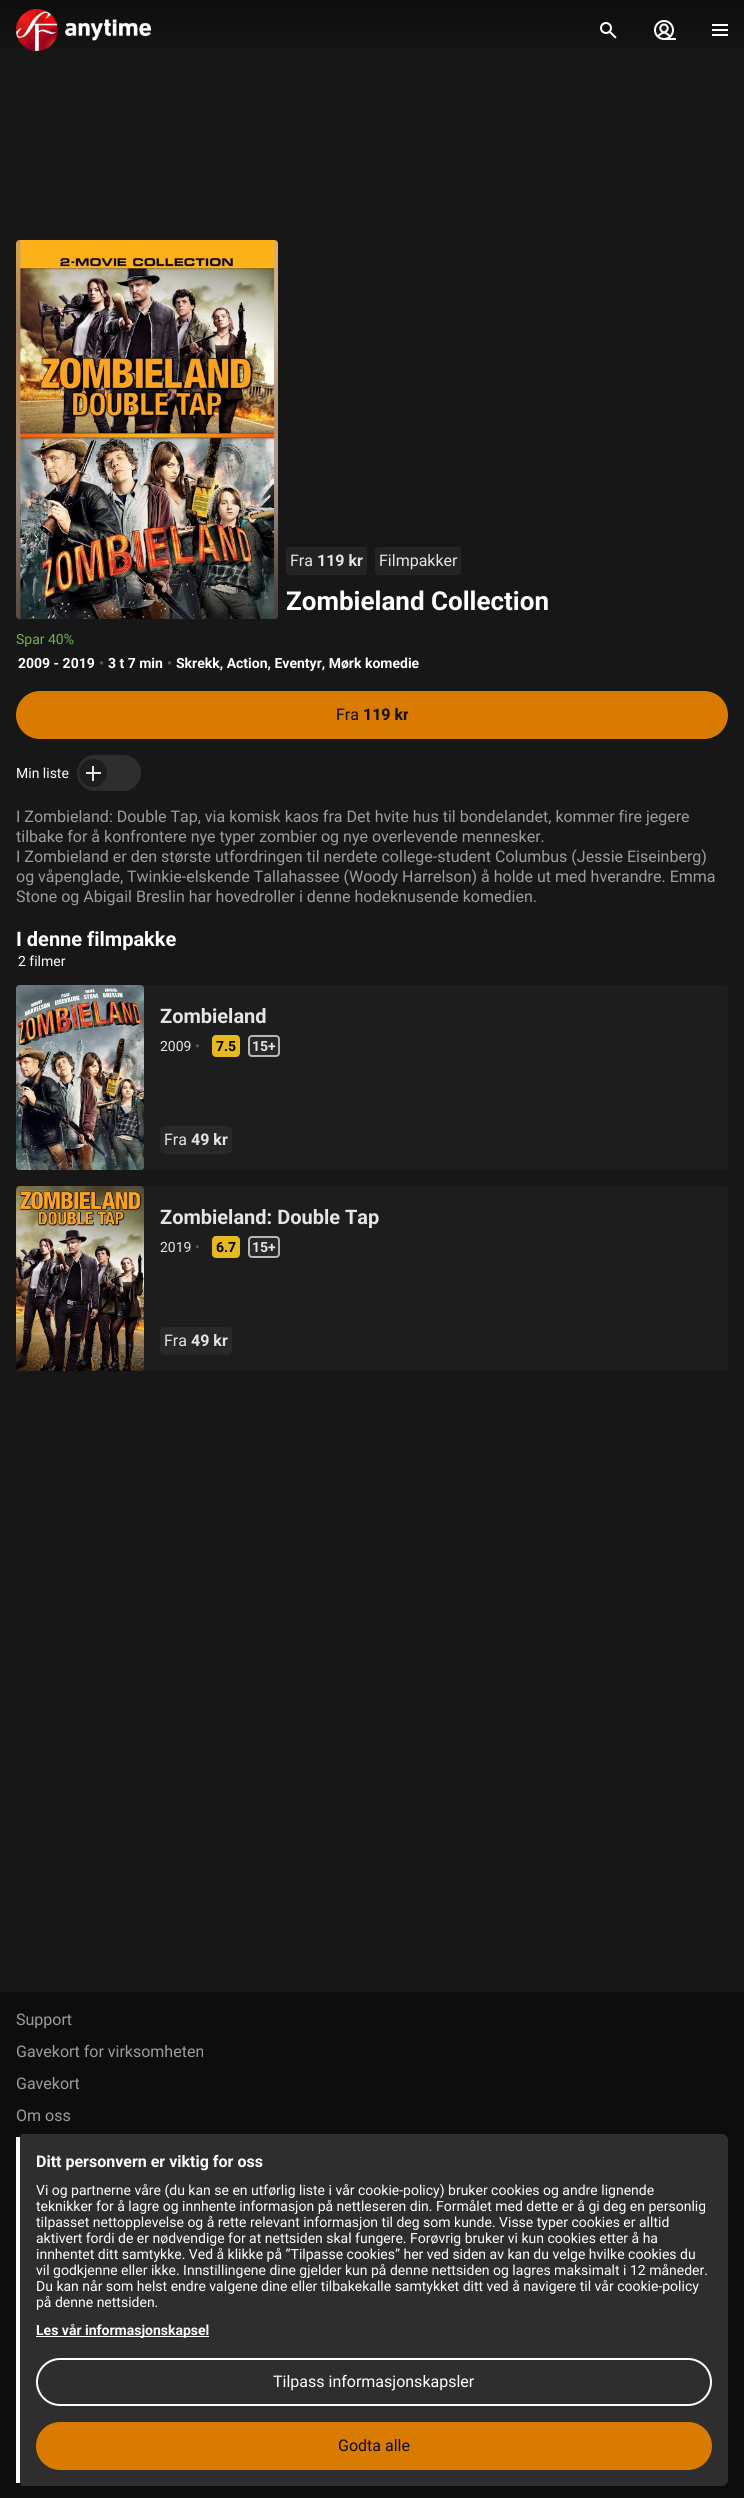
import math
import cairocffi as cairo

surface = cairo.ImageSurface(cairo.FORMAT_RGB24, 744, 2498)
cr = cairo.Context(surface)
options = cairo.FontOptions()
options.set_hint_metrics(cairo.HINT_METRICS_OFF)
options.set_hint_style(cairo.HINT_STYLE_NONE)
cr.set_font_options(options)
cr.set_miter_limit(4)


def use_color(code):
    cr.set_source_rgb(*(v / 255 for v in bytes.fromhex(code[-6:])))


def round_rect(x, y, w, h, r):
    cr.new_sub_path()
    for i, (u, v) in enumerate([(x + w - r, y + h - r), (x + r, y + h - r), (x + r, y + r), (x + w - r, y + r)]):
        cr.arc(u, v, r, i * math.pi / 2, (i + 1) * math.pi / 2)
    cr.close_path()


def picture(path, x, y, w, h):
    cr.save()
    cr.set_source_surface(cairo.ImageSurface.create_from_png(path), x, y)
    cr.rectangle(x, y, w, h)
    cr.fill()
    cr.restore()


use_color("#171717")
cr.paint()
gradient = cairo.LinearGradient(372, 64, 372, 0)
gradient.add_color_stop_rgba(0, 0.09, 0.09, 0.09, 1)
gradient.add_color_stop_rgba(1, 0.051, 0.051, 0.051, 1)
cr.set_source(gradient)
cr.rectangle(0, 0, 744, 48)
cr.fill()
picture("img1.png", 16, 9, 135, 42)
picture("img2.png", 600, 22, 17, 17)
picture("img3.png", 654, 20, 22, 20)
use_color("#ffffff")
cr.rectangle(712, 34, 16, 2)
cr.fill()
cr.rectangle(712, 24, 16, 2)
cr.fill()
cr.rectangle(712, 29, 16, 2)
cr.fill()
picture("img4.png", 16, 240, 262, 379)
use_color("#232323")
round_rect(286, 547, 81, 28, 4)
cr.fill()
cr.rectangle(287, 548, 79, 26)
cr.set_source_rgba(0.353, 0.353, 0.353, 0.05)
cr.stroke()
cr.select_font_face("Roboto")
cr.set_font_size(16)
use_color("#e5e5e5")
cr.move_to(290, 566)
cr.show_text("Fra")
cr.select_font_face("Roboto", cairo.FONT_SLANT_NORMAL, cairo.FONT_WEIGHT_BOLD)
cr.move_to(317, 566)
cr.show_text("119 kr")
use_color("#232323")
round_rect(375, 547, 86, 28, 4)
cr.fill()
cr.rectangle(376, 548, 84, 26)
cr.set_source_rgba(0.353, 0.353, 0.353, 0.05)
cr.stroke()
cr.select_font_face("Roboto")
use_color("#e5e5e5")
cr.move_to(379, 566)
cr.show_text("Filmpakker")
cr.select_font_face("Roboto", cairo.FONT_SLANT_NORMAL, cairo.FONT_WEIGHT_BOLD)
cr.set_font_size(26)
use_color("#ffffff")
cr.move_to(286, 610)
cr.show_text("Zombieland Collection")
cr.select_font_face("Roboto")
cr.set_font_size(14)
use_color("#73af55")
cr.move_to(16, 644)
cr.show_text("Spar 40%")
cr.select_font_face("Roboto", cairo.FONT_SLANT_NORMAL, cairo.FONT_WEIGHT_BOLD)
use_color("#ffffff")
cr.move_to(18, 668)
cr.show_text("2009 - 2019")
use_color("#5a5a5a")
cr.move_to(99, 668)
cr.show_text("•")
use_color("#ffffff")
cr.move_to(108, 668)
cr.show_text("3 t 7 min")
use_color("#5a5a5a")
cr.move_to(167, 668)
cr.show_text("•")
use_color("#ffffff")
cr.move_to(176, 668)
cr.show_text("Skrekk, Action, Eventyr, Mørk komedie")
use_color("#d87b00")
round_rect(17, 692, 710, 46, 23)
cr.fill_preserve()
cr.stroke()
cr.select_font_face("Roboto")
cr.set_font_size(16)
use_color("#0d0d0d")
cr.move_to(336, 720)
cr.show_text("Fra")
cr.save()
cr.rectangle(363, 703, 45, 24)
cr.clip()
cr.select_font_face("Roboto", cairo.FONT_SLANT_NORMAL, cairo.FONT_WEIGHT_BOLD)
cr.move_to(363, 720)
cr.show_text("119 kr")
cr.restore()
cr.set_font_size(14)
use_color("#ffffff")
cr.move_to(16, 778)
cr.show_text("Min liste")
use_color("#2e2e2e")
round_rect(77, 755, 64, 36, 18)
cr.fill()
use_color("#1d1d1d")
cr.arc(93, 773, 14, 0, 2 * math.pi)
cr.fill()
use_color("#e5e5e5")
cr.rectangle(86, 772, 15, 2)
cr.fill()
cr.rectangle(92, 766, 2, 15)
cr.fill()
cr.set_font_size(16)
use_color("#9c9c9c")
cr.move_to(16, 822)
cr.show_text("I Zombieland: Double Tap, via komisk kaos fra Det hvite hus til bondelandet, kommer fire jegere")
cr.move_to(16, 842)
cr.show_text("tilbake for å konfrontere nye typer zombier og nye overlevende mennesker.")
cr.move_to(16, 862)
cr.show_text("I Zombieland er den største utfordringen til nerdete college-student Columbus (Jessie Eiseinberg)")
cr.move_to(16, 882)
cr.show_text("og våpenglade, Twinkie-elskende Tallahassee (Woody Harrelson) å holde ut med hverandre. Emma")
cr.move_to(16, 902)
cr.show_text("Stone og Abigail Breslin har hovedroller i denne hodeknusende komedien.")
cr.select_font_face("Roboto", cairo.FONT_SLANT_NORMAL, cairo.FONT_WEIGHT_BOLD)
cr.set_font_size(20)
use_color("#ffffff")
cr.move_to(16, 946)
cr.show_text("I denne filmpakke")
cr.select_font_face("Roboto")
cr.set_font_size(14)
cr.move_to(18, 966)
cr.show_text("2 filmer")
use_color("#1d1d1d")
round_rect(16, 985, 712, 185, 4)
cr.fill()
picture("img5.png", 16, 985, 128, 185)
cr.select_font_face("Roboto", cairo.FONT_SLANT_NORMAL, cairo.FONT_WEIGHT_BOLD)
cr.set_font_size(20)
use_color("#e5e5e5")
cr.move_to(160, 1023)
cr.show_text("Zombieland")
cr.select_font_face("Roboto")
cr.set_font_size(14)
cr.move_to(160, 1051)
cr.show_text("2009")
use_color("#5a5a5a")
cr.move_to(195, 1051)
cr.show_text("•")
use_color("#e6b91e")
round_rect(213, 1036, 26, 20, 3)
cr.fill_preserve()
cr.stroke()
cr.select_font_face("Roboto", cairo.FONT_SLANT_NORMAL, cairo.FONT_WEIGHT_BOLD)
use_color("#000000")
cr.move_to(216, 1051)
cr.show_text("7.5")
use_color("#282828")
round_rect(248, 1035, 32, 22, 4)
cr.fill()
round_rect(249, 1036, 30, 20, 3)
cr.set_source_rgba(0.898, 0.898, 0.898, 0.75)
cr.stroke()
use_color("#e5e5e5")
cr.move_to(252, 1051)
cr.show_text("15+")
use_color("#282828")
round_rect(160, 1126, 72, 28, 4)
cr.fill()
cr.select_font_face("Roboto")
cr.set_font_size(16)
use_color("#e5e5e5")
cr.move_to(164, 1145)
cr.show_text("Fra")
cr.select_font_face("Roboto", cairo.FONT_SLANT_NORMAL, cairo.FONT_WEIGHT_BOLD)
cr.move_to(191, 1145)
cr.show_text("49 kr")
use_color("#1d1d1d")
round_rect(16, 1186, 712, 185, 4)
cr.fill()
picture("img6.png", 16, 1186, 128, 185)
cr.set_font_size(20)
use_color("#e5e5e5")
cr.move_to(160, 1224)
cr.show_text("Zombieland: Double Tap")
cr.select_font_face("Roboto")
cr.set_font_size(14)
cr.move_to(160, 1252)
cr.show_text("2019")
use_color("#5a5a5a")
cr.move_to(195, 1252)
cr.show_text("•")
use_color("#e6b91e")
round_rect(213, 1237, 26, 20, 3)
cr.fill_preserve()
cr.stroke()
cr.select_font_face("Roboto", cairo.FONT_SLANT_NORMAL, cairo.FONT_WEIGHT_BOLD)
use_color("#000000")
cr.move_to(216, 1252)
cr.show_text("6.7")
use_color("#282828")
round_rect(248, 1236, 32, 22, 4)
cr.fill()
round_rect(249, 1237, 30, 20, 3)
cr.set_source_rgba(0.898, 0.898, 0.898, 0.75)
cr.stroke()
use_color("#e5e5e5")
cr.move_to(252, 1252)
cr.show_text("15+")
use_color("#282828")
round_rect(160, 1327, 72, 28, 4)
cr.fill()
cr.select_font_face("Roboto")
cr.set_font_size(16)
use_color("#e5e5e5")
cr.move_to(164, 1346)
cr.show_text("Fra")
cr.select_font_face("Roboto", cairo.FONT_SLANT_NORMAL, cairo.FONT_WEIGHT_BOLD)
cr.move_to(191, 1346)
cr.show_text("49 kr")
use_color("#0d0d0d")
cr.rectangle(0, 1992, 744, 317)
cr.fill()
cr.select_font_face("Roboto")
use_color("#9c9c9c")
cr.move_to(16, 2025)
cr.show_text("Support")
cr.move_to(16, 2057)
cr.show_text("Gavekort for virksomheten")
cr.move_to(16, 2089)
cr.show_text("Gavekort")
cr.move_to(16, 2121)
cr.show_text("Om oss")
gradient = cairo.LinearGradient(372, 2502, 372, 2118)
gradient.add_color_stop_rgba(0, 0.051, 0.051, 0.051, 1)
gradient.add_color_stop_rgba(0.5, 0.051, 0.051, 0.051, 1)
gradient.add_color_stop_rgba(1, 0.051, 0.051, 0.051, 0)
cr.set_source(gradient)
cr.rectangle(0, 2309, 744, 189)
cr.fill()
use_color("#2e2e2e")
cr.new_path()
cr.move_to(22, 2134)
cr.line_to(722, 2134)
cr.curve_to(725, 2134, 728, 2137, 728, 2140)
cr.line_to(728, 2480)
cr.curve_to(728, 2483, 725, 2486, 722, 2486)
cr.line_to(22, 2486)
cr.curve_to(21, 2486, 20, 2483, 20, 2480)
cr.line_to(20, 2140)
cr.curve_to(20, 2137, 21, 2134, 22, 2134)
cr.close_path()
cr.fill()
use_color("#ffffff")
cr.rectangle(16, 2137, 4, 346)
cr.fill()
cr.select_font_face("Roboto", cairo.FONT_SLANT_NORMAL, cairo.FONT_WEIGHT_BOLD)
cr.move_to(36, 2167)
cr.show_text("Ditt personvern er viktig for oss")
cr.select_font_face("Roboto")
cr.set_font_size(14)
cr.move_to(36, 2195)
cr.show_text("Vi og partnerne våre (du kan se en utførlig liste i vår cookie-policy) bruker cookies og andre lignende")
cr.move_to(36, 2211)
cr.show_text("teknikker for å lagre og innhente informasjon på nettleseren din. Formålet med dette er å gi deg en personlig")
cr.move_to(36, 2227)
cr.show_text("tilpasset nettopplevelse og å rette relevant informasjon til deg som kunde. Visse typer cookies er alltid")
cr.move_to(36, 2243)
cr.show_text("aktivert fordi de er nødvendige for at nettsiden skal fungere. Forøvrig bruker vi kun cookies etter å ha")
cr.move_to(36, 2259)
cr.show_text("innhentet ditt samtykke. Ved å klikke på ”Tilpasse cookies” her ved siden av kan du velge hvilke cookies du")
cr.move_to(36, 2275)
cr.show_text("vil godkjenne eller ikke. Innstillingene dine gjelder kun på denne nettsiden og lagres maksimalt i 12 måneder.")
cr.move_to(36, 2291)
cr.show_text("Du kan når som helst endre valgene dine eller tilbakekalle samtykket ditt ved å navigere til vår cookie-policy")
cr.move_to(36, 2307)
cr.show_text("på denne nettsiden.")
cr.rectangle(36, 2336, 173, 1)
cr.fill()
cr.select_font_face("Roboto", cairo.FONT_SLANT_NORMAL, cairo.FONT_WEIGHT_BOLD)
cr.move_to(36, 2335)
cr.show_text("Les vår informasjonskapsel")
round_rect(37, 2359, 674, 46, 23)
cr.stroke()
cr.select_font_face("Roboto")
cr.set_font_size(16)
cr.move_to(273, 2387)
cr.show_text("Tilpass informasjonskapsler")
use_color("#d87b00")
round_rect(37, 2423, 674, 46, 23)
cr.fill_preserve()
cr.stroke()
use_color("#0d0d0d")
cr.move_to(338, 2451)
cr.show_text("Godta alle")
surface.write_to_png("result.png")
